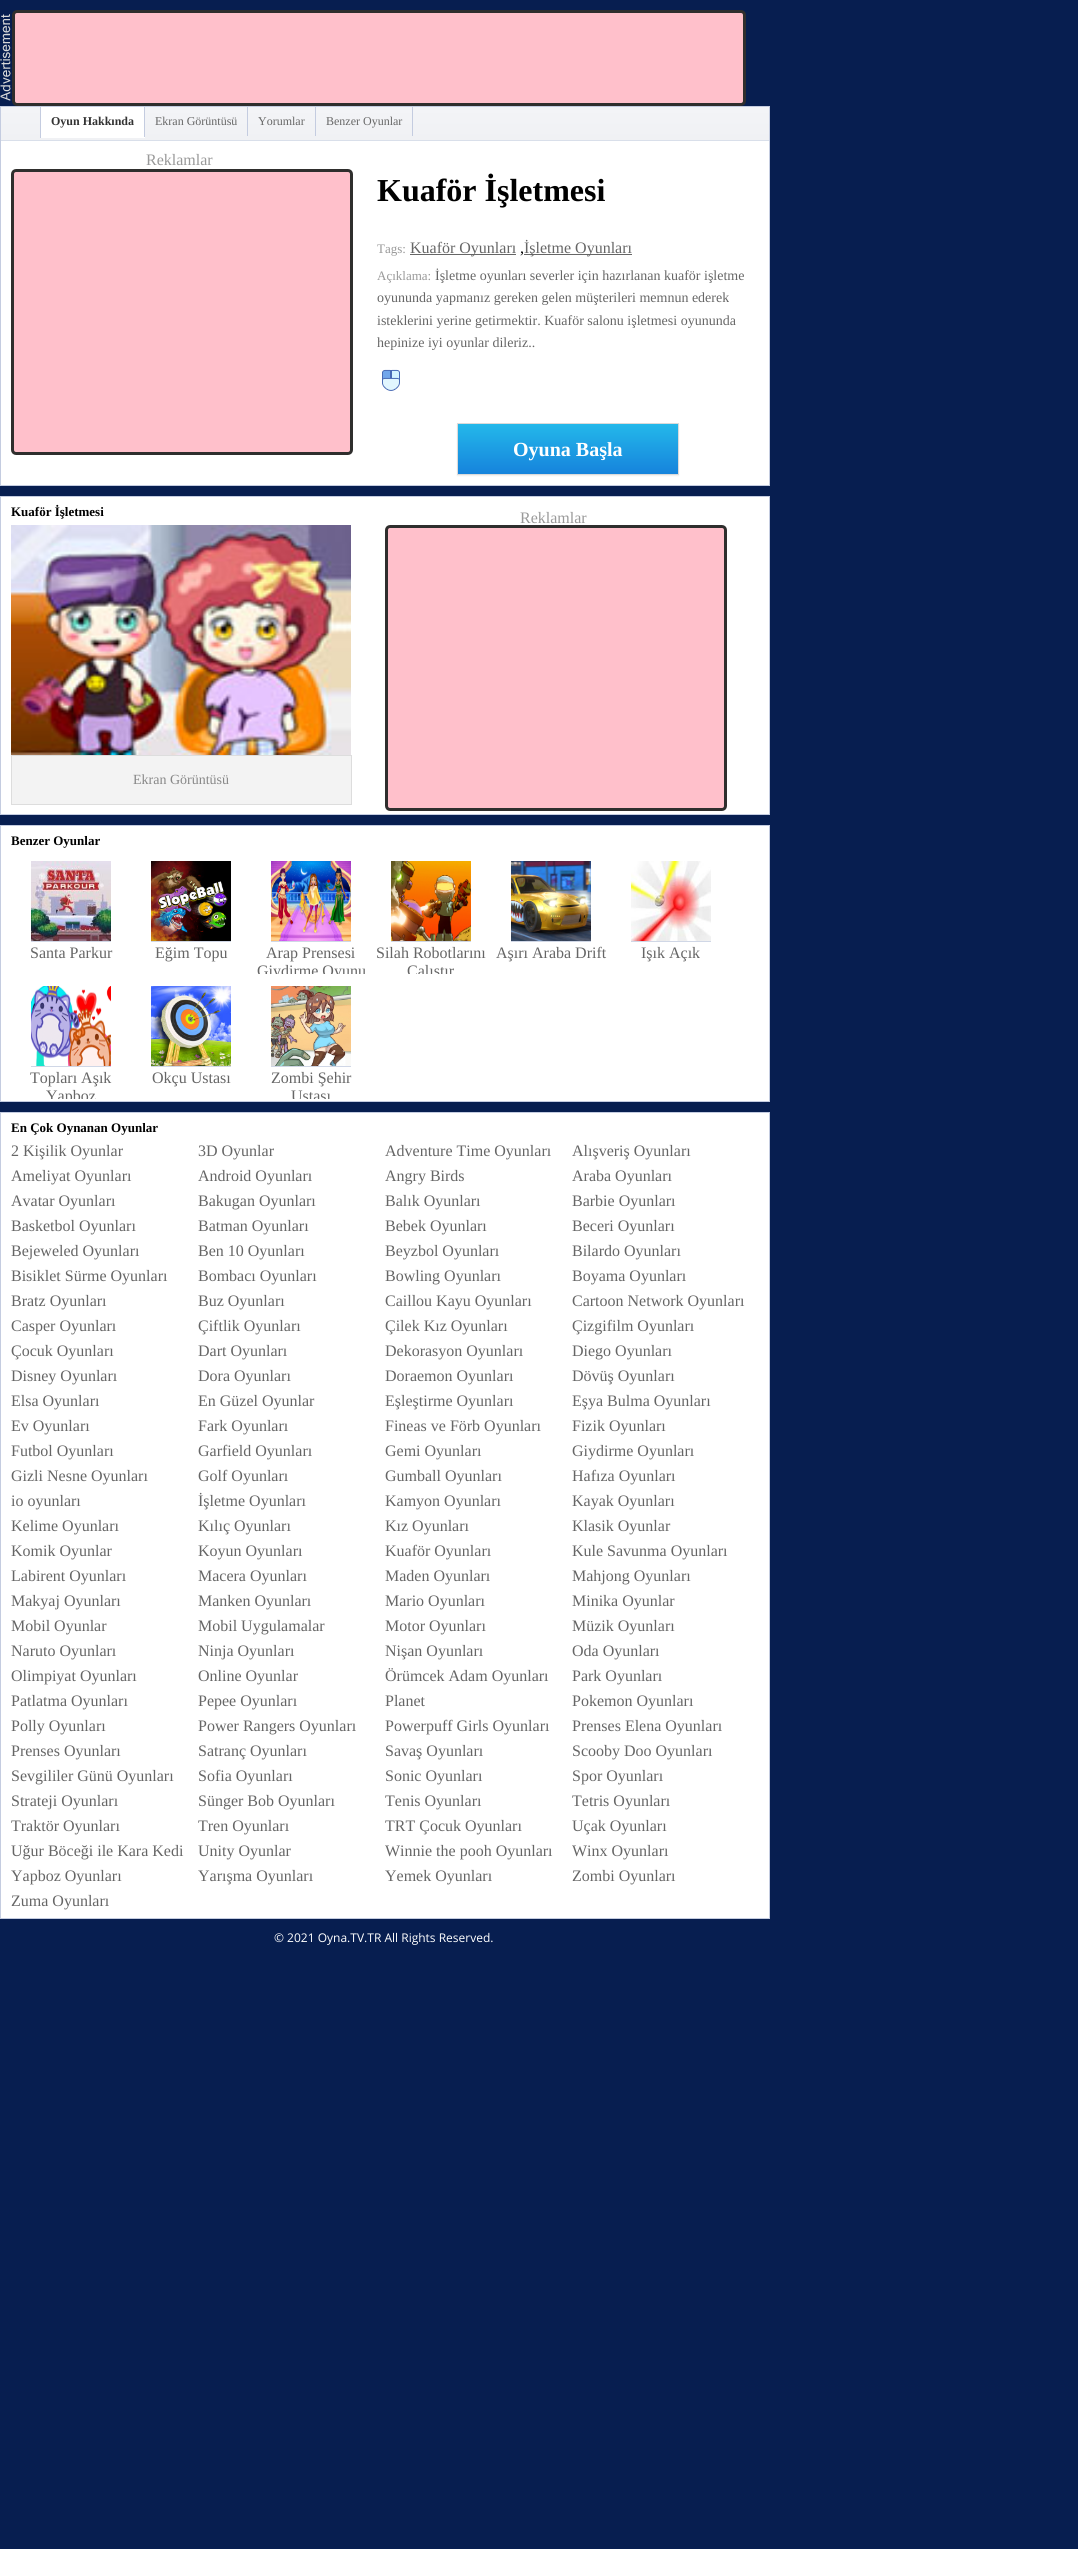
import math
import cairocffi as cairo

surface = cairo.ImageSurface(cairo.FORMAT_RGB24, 1078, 2549)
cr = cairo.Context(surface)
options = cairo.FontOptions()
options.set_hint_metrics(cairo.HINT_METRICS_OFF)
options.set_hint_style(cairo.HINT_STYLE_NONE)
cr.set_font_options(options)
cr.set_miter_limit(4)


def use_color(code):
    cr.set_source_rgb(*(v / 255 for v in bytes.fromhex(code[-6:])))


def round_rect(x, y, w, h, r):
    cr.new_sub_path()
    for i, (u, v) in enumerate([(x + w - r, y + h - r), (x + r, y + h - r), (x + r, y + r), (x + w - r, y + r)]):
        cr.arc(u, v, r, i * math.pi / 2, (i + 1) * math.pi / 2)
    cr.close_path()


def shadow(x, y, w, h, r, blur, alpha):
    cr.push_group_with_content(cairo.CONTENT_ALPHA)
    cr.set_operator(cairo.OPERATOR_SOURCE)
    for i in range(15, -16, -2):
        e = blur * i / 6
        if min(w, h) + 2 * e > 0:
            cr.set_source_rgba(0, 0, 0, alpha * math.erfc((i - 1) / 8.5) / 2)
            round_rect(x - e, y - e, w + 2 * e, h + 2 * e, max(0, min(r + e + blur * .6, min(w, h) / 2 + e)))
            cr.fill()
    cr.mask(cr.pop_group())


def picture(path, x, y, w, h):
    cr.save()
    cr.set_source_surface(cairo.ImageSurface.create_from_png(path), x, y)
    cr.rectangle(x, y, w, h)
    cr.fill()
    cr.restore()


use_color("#071e50")
cr.paint()
picture("img1.png", 0, 14, 11, 87)
use_color("#ffc0cb")
round_rect(13.5, 11.5, 731, 93, 3.5)
cr.fill_preserve()
use_color("#2f2e2d")
cr.set_line_width(3)
cr.stroke()
gradient = cairo.LinearGradient(385, 107, 385, 140)
gradient.add_color_stop_rgba(0, 0.953, 0.957, 0.969, 1)
gradient.add_color_stop_rgba(1, 0.941, 0.945, 0.957, 1)
cr.set_source(gradient)
cr.rectangle(1, 107, 768, 33)
cr.fill()
use_color("#c4cce0")
cr.rectangle(1, 106, 768, 1)
cr.fill()
use_color("#ffffff")
cr.rectangle(41, 107, 103, 30)
cr.fill()
use_color("#c4cce0")
cr.rectangle(144, 106, 1, 32)
cr.fill()
use_color("#ffffff")
cr.rectangle(40, 137, 105, 1)
cr.fill()
use_color("#c4cce0")
cr.rectangle(40, 106, 1, 32)
cr.fill()
cr.select_font_face("Liberation Serif", cairo.FONT_SLANT_NORMAL, cairo.FONT_WEIGHT_BOLD)
cr.set_font_size(12)
use_color("#333333")
cr.move_to(51, 125)
cr.show_text("Oyun Hakkında")
use_color("#c4cce0")
cr.rectangle(247, 107, 1, 29)
cr.fill()
cr.select_font_face("Liberation Serif")
use_color("#666666")
cr.move_to(155, 125)
cr.show_text("Ekran Görüntüsü")
use_color("#c4cce0")
cr.rectangle(315, 107, 1, 29)
cr.fill()
use_color("#666666")
cr.move_to(258, 125)
cr.show_text("Yorumlar")
use_color("#c4cce0")
cr.rectangle(412, 107, 1, 29)
cr.fill()
use_color("#666666")
cr.move_to(326, 125)
cr.show_text("Benzer Oyunlar")
use_color("#ffffff")
cr.rectangle(1, 141, 768, 344)
cr.fill()
use_color("#c4cce0")
cr.rectangle(769, 106, 1, 380)
cr.fill()
cr.rectangle(0, 485, 770, 1)
cr.fill()
cr.rectangle(0, 106, 1, 380)
cr.fill()
use_color("#d9dfea")
cr.rectangle(1, 140, 768, 1)
cr.fill()
cr.set_font_size(16)
use_color("#999999")
cr.move_to(146, 165)
cr.show_text("Reklamlar")
use_color("#ffc0cb")
round_rect(12.5, 170.5, 339, 283, 3.5)
cr.fill_preserve()
use_color("#2f2e2d")
cr.stroke()
cr.select_font_face("Liberation Serif", cairo.FONT_SLANT_NORMAL, cairo.FONT_WEIGHT_BOLD)
cr.set_font_size(32)
use_color("#000000")
cr.move_to(377, 201)
cr.show_text("Kuaför İşletmesi")
cr.select_font_face("Liberation Serif")
cr.set_font_size(13)
use_color("#999999")
cr.move_to(377, 253)
cr.show_text("Tags:")
use_color("#666666")
cr.rectangle(410, 254, 106, 1)
cr.fill()
cr.set_font_size(16)
cr.move_to(410, 253)
cr.show_text("Kuaför Oyunları")
use_color("#000000")
cr.move_to(520, 253)
cr.show_text(",")
use_color("#666666")
cr.rectangle(524, 254, 108, 1)
cr.fill()
cr.move_to(524, 253)
cr.show_text("İşletme Oyunları")
cr.set_font_size(13)
use_color("#999999")
cr.move_to(377, 280)
cr.show_text("Açıklama:")
cr.set_font_size(14)
use_color("#666666")
cr.move_to(435, 280)
cr.show_text("İşletme oyunları severler için hazırlanan kuaför işletme")
cr.move_to(377, 302)
cr.show_text("oyununda yapmanız gereken gelen müşterileri memnun ederek")
cr.move_to(377, 325)
cr.show_text("isteklerini yerine getirmektir. Kuaför salonu işletmesi oyununda")
cr.move_to(377, 347)
cr.show_text("hepinize iyi oyunlar dileriz..")
picture("img2.png", 382, 369, 18, 22)
use_color("#f0f0f0")
shadow(457, 424, 222, 52, 0, 0.5, 1)
gradient = cairo.LinearGradient(568, 424, 568, 474)
gradient.add_color_stop_rgba(0, 0.141, 0.722, 0.918, 1)
gradient.add_color_stop_rgba(1, 0.086, 0.514, 0.863, 1)
cr.set_source(gradient)
cr.rectangle(458, 424, 220, 50)
cr.fill()
cr.rectangle(457.5, 423.5, 221, 51)
use_color("#dadada")
cr.set_line_width(1)
cr.stroke()
cr.select_font_face("Liberation Serif", cairo.FONT_SLANT_NORMAL, cairo.FONT_WEIGHT_BOLD)
cr.set_font_size(20)
use_color("#ffffff")
cr.move_to(513, 456)
cr.show_text("Oyuna Başla")
cr.rectangle(0.5, 496.5, 769, 318)
cr.fill_preserve()
use_color("#c4cce0")
cr.stroke()
cr.set_font_size(13)
use_color("#000000")
cr.move_to(11, 516)
cr.show_text("Kuaför İşletmesi")
cr.select_font_face("Liberation Serif")
cr.set_font_size(16)
use_color("#999999")
cr.move_to(520, 523)
cr.show_text("Reklamlar")
use_color("#ffc0cb")
round_rect(386.5, 526.5, 339, 283, 3.5)
cr.fill_preserve()
use_color("#2f2e2d")
cr.set_line_width(3)
cr.stroke()
picture("img3.png", 11, 525, 340, 230)
use_color("#f3f3f3")
cr.rectangle(11.5, 755.5, 340, 49)
cr.fill_preserve()
use_color("#dddddd")
cr.set_line_width(1)
cr.stroke()
cr.set_font_size(14)
use_color("#888888")
cr.move_to(133, 784)
cr.show_text("Ekran Görüntüsü")
use_color("#ffffff")
cr.rectangle(0.5, 825.5, 769, 276)
cr.fill_preserve()
use_color("#c4cce0")
cr.stroke()
cr.select_font_face("Liberation Serif", cairo.FONT_SLANT_NORMAL, cairo.FONT_WEIGHT_BOLD)
cr.set_font_size(13)
use_color("#000000")
cr.move_to(11, 845)
cr.show_text("Benzer Oyunlar")
picture("img4.png", 31, 861, 80, 80)
use_color("#d0d7e6")
cr.rectangle(31, 941, 80, 1)
cr.fill()
cr.select_font_face("Liberation Serif")
cr.set_font_size(16)
use_color("#666666")
cr.move_to(30, 958)
cr.show_text("Santa Parkur")
picture("img5.png", 151, 861, 80, 80)
use_color("#d0d7e6")
cr.rectangle(151, 941, 80, 1)
cr.fill()
use_color("#666666")
cr.move_to(155, 958)
cr.show_text("Eğim Topu")
picture("img6.png", 271, 861, 80, 80)
use_color("#d0d7e6")
cr.rectangle(271, 941, 80, 1)
cr.fill()
use_color("#666666")
cr.move_to(266, 958)
cr.show_text("Arap Prensesi")
cr.save()
cr.rectangle(251, 944, 120, 30)
cr.clip()
cr.move_to(257, 976)
cr.show_text("Giydirme Oyunu")
cr.restore()
picture("img7.png", 391, 861, 80, 80)
use_color("#d0d7e6")
cr.rectangle(391, 941, 80, 1)
cr.fill()
use_color("#666666")
cr.move_to(376, 958)
cr.show_text("Silah Robotlarını")
cr.save()
cr.rectangle(371, 944, 120, 30)
cr.clip()
cr.move_to(407, 976)
cr.show_text("Çalıştır")
cr.restore()
picture("img8.png", 511, 861, 80, 80)
use_color("#d0d7e6")
cr.rectangle(511, 941, 80, 1)
cr.fill()
use_color("#666666")
cr.move_to(496, 958)
cr.show_text("Aşırı Araba Drift")
picture("img9.png", 631, 861, 80, 80)
use_color("#d0d7e6")
cr.rectangle(631, 941, 80, 1)
cr.fill()
use_color("#666666")
cr.move_to(641, 958)
cr.show_text("Işık Açık")
picture("img10.png", 31, 986, 80, 80)
use_color("#d0d7e6")
cr.rectangle(31, 1066, 80, 1)
cr.fill()
use_color("#666666")
cr.move_to(30, 1083)
cr.show_text("Topları Aşık")
cr.save()
cr.rectangle(11, 1069, 120, 30)
cr.clip()
cr.move_to(46, 1101)
cr.show_text("Yapboz")
cr.restore()
picture("img11.png", 151, 986, 80, 80)
use_color("#d0d7e6")
cr.rectangle(151, 1066, 80, 1)
cr.fill()
use_color("#666666")
cr.move_to(152, 1083)
cr.show_text("Okçu Ustası")
picture("img12.png", 271, 986, 80, 80)
use_color("#d0d7e6")
cr.rectangle(271, 1066, 80, 1)
cr.fill()
use_color("#666666")
cr.move_to(271, 1083)
cr.show_text("Zombi Şehir")
cr.save()
cr.rectangle(251, 1069, 120, 30)
cr.clip()
cr.move_to(291, 1101)
cr.show_text("Ustası")
cr.restore()
use_color("#ffffff")
cr.rectangle(0.5, 1112.5, 769, 806)
cr.fill_preserve()
use_color("#c4cce0")
cr.stroke()
cr.select_font_face("Liberation Serif", cairo.FONT_SLANT_NORMAL, cairo.FONT_WEIGHT_BOLD)
cr.set_font_size(13)
use_color("#000000")
cr.move_to(11, 1132)
cr.show_text("En Çok Oynanan Oyunlar")
cr.select_font_face("Liberation Serif")
cr.set_font_size(16)
use_color("#666666")
cr.move_to(11, 1156)
cr.show_text("2 Kişilik Oyunlar")
cr.move_to(198, 1156)
cr.show_text("3D Oyunlar")
cr.move_to(385, 1156)
cr.show_text("Adventure Time Oyunları")
cr.move_to(572, 1156)
cr.show_text("Alışveriş Oyunları")
cr.move_to(11, 1181)
cr.show_text("Ameliyat Oyunları")
cr.move_to(198, 1181)
cr.show_text("Android Oyunları")
cr.move_to(385, 1181)
cr.show_text("Angry Birds")
cr.move_to(572, 1181)
cr.show_text("Araba Oyunları")
cr.move_to(11, 1206)
cr.show_text("Avatar Oyunları")
cr.move_to(198, 1206)
cr.show_text("Bakugan Oyunları")
cr.move_to(385, 1206)
cr.show_text("Balık Oyunları")
cr.move_to(572, 1206)
cr.show_text("Barbie Oyunları")
cr.move_to(11, 1231)
cr.show_text("Basketbol Oyunları")
cr.move_to(198, 1231)
cr.show_text("Batman Oyunları")
cr.move_to(385, 1231)
cr.show_text("Bebek Oyunları")
cr.move_to(572, 1231)
cr.show_text("Beceri Oyunları")
cr.move_to(11, 1256)
cr.show_text("Bejeweled Oyunları")
cr.move_to(198, 1256)
cr.show_text("Ben 10 Oyunları")
cr.move_to(385, 1256)
cr.show_text("Beyzbol Oyunları")
cr.move_to(572, 1256)
cr.show_text("Bilardo Oyunları")
cr.move_to(11, 1281)
cr.show_text("Bisiklet Sürme Oyunları")
cr.move_to(198, 1281)
cr.show_text("Bombacı Oyunları")
cr.move_to(385, 1281)
cr.show_text("Bowling Oyunları")
cr.move_to(572, 1281)
cr.show_text("Boyama Oyunları")
cr.move_to(11, 1306)
cr.show_text("Bratz Oyunları")
cr.move_to(198, 1306)
cr.show_text("Buz Oyunları")
cr.move_to(385, 1306)
cr.show_text("Caillou Kayu Oyunları")
cr.move_to(572, 1306)
cr.show_text("Cartoon Network Oyunları")
cr.move_to(11, 1331)
cr.show_text("Casper Oyunları")
cr.move_to(198, 1331)
cr.show_text("Çiftlik Oyunları")
cr.move_to(385, 1331)
cr.show_text("Çilek Kız Oyunları")
cr.move_to(572, 1331)
cr.show_text("Çizgifilm Oyunları")
cr.move_to(11, 1356)
cr.show_text("Çocuk Oyunları")
cr.move_to(198, 1356)
cr.show_text("Dart Oyunları")
cr.move_to(385, 1356)
cr.show_text("Dekorasyon Oyunları")
cr.move_to(572, 1356)
cr.show_text("Diego Oyunları")
cr.move_to(11, 1381)
cr.show_text("Disney Oyunları")
cr.move_to(198, 1381)
cr.show_text("Dora Oyunları")
cr.move_to(385, 1381)
cr.show_text("Doraemon Oyunları")
cr.move_to(572, 1381)
cr.show_text("Dövüş Oyunları")
cr.move_to(11, 1406)
cr.show_text("Elsa Oyunları")
cr.move_to(198, 1406)
cr.show_text("En Güzel Oyunlar")
cr.move_to(385, 1406)
cr.show_text("Eşleştirme Oyunları")
cr.move_to(572, 1406)
cr.show_text("Eşya Bulma Oyunları")
cr.move_to(11, 1431)
cr.show_text("Ev Oyunları")
cr.move_to(198, 1431)
cr.show_text("Fark Oyunları")
cr.move_to(385, 1431)
cr.show_text("Fineas ve Förb Oyunları")
cr.move_to(572, 1431)
cr.show_text("Fizik Oyunları")
cr.move_to(11, 1456)
cr.show_text("Futbol Oyunları")
cr.move_to(198, 1456)
cr.show_text("Garfield Oyunları")
cr.move_to(385, 1456)
cr.show_text("Gemi Oyunları")
cr.move_to(572, 1456)
cr.show_text("Giydirme Oyunları")
cr.move_to(11, 1481)
cr.show_text("Gizli Nesne Oyunları")
cr.move_to(198, 1481)
cr.show_text("Golf Oyunları")
cr.move_to(385, 1481)
cr.show_text("Gumball Oyunları")
cr.move_to(572, 1481)
cr.show_text("Hafıza Oyunları")
cr.move_to(11, 1506)
cr.show_text("io oyunları")
cr.move_to(198, 1506)
cr.show_text("İşletme Oyunları")
cr.move_to(385, 1506)
cr.show_text("Kamyon Oyunları")
cr.move_to(572, 1506)
cr.show_text("Kayak Oyunları")
cr.move_to(11, 1531)
cr.show_text("Kelime Oyunları")
cr.move_to(198, 1531)
cr.show_text("Kılıç Oyunları")
cr.move_to(385, 1531)
cr.show_text("Kız Oyunları")
cr.move_to(572, 1531)
cr.show_text("Klasik Oyunlar")
cr.move_to(11, 1556)
cr.show_text("Komik Oyunlar")
cr.move_to(198, 1556)
cr.show_text("Koyun Oyunları")
cr.move_to(385, 1556)
cr.show_text("Kuaför Oyunları")
cr.move_to(572, 1556)
cr.show_text("Kule Savunma Oyunları")
cr.move_to(11, 1581)
cr.show_text("Labirent Oyunları")
cr.move_to(198, 1581)
cr.show_text("Macera Oyunları")
cr.move_to(385, 1581)
cr.show_text("Maden Oyunları")
cr.move_to(572, 1581)
cr.show_text("Mahjong Oyunları")
cr.move_to(11, 1606)
cr.show_text("Makyaj Oyunları")
cr.move_to(198, 1606)
cr.show_text("Manken Oyunları")
cr.move_to(385, 1606)
cr.show_text("Mario Oyunları")
cr.move_to(572, 1606)
cr.show_text("Minika Oyunlar")
cr.move_to(11, 1631)
cr.show_text("Mobil Oyunlar")
cr.move_to(198, 1631)
cr.show_text("Mobil Uygulamalar")
cr.move_to(385, 1631)
cr.show_text("Motor Oyunları")
cr.move_to(572, 1631)
cr.show_text("Müzik Oyunları")
cr.move_to(11, 1656)
cr.show_text("Naruto Oyunları")
cr.move_to(198, 1656)
cr.show_text("Ninja Oyunları")
cr.move_to(385, 1656)
cr.show_text("Nişan Oyunları")
cr.move_to(572, 1656)
cr.show_text("Oda Oyunları")
cr.move_to(11, 1681)
cr.show_text("Olimpiyat Oyunları")
cr.move_to(198, 1681)
cr.show_text("Online Oyunlar")
cr.move_to(385, 1681)
cr.show_text("Örümcek Adam Oyunları")
cr.move_to(572, 1681)
cr.show_text("Park Oyunları")
cr.move_to(11, 1706)
cr.show_text("Patlatma Oyunları")
cr.move_to(198, 1706)
cr.show_text("Pepee Oyunları")
cr.move_to(385, 1706)
cr.show_text("Planet")
cr.move_to(572, 1706)
cr.show_text("Pokemon Oyunları")
cr.move_to(11, 1731)
cr.show_text("Polly Oyunları")
cr.move_to(198, 1731)
cr.show_text("Power Rangers Oyunları")
cr.move_to(385, 1731)
cr.show_text("Powerpuff Girls Oyunları")
cr.move_to(572, 1731)
cr.show_text("Prenses Elena Oyunları")
cr.move_to(11, 1756)
cr.show_text("Prenses Oyunları")
cr.move_to(198, 1756)
cr.show_text("Satranç Oyunları")
cr.move_to(385, 1756)
cr.show_text("Savaş Oyunları")
cr.move_to(572, 1756)
cr.show_text("Scooby Doo Oyunları")
cr.move_to(11, 1781)
cr.show_text("Sevgililer Günü Oyunları")
cr.move_to(198, 1781)
cr.show_text("Sofia Oyunları")
cr.move_to(385, 1781)
cr.show_text("Sonic Oyunları")
cr.move_to(572, 1781)
cr.show_text("Spor Oyunları")
cr.move_to(11, 1806)
cr.show_text("Strateji Oyunları")
cr.move_to(198, 1806)
cr.show_text("Sünger Bob Oyunları")
cr.move_to(385, 1806)
cr.show_text("Tenis Oyunları")
cr.move_to(572, 1806)
cr.show_text("Tetris Oyunları")
cr.move_to(11, 1831)
cr.show_text("Traktör Oyunları")
cr.move_to(198, 1831)
cr.show_text("Tren Oyunları")
cr.move_to(385, 1831)
cr.show_text("TRT Çocuk Oyunları")
cr.move_to(572, 1831)
cr.show_text("Uçak Oyunları")
cr.move_to(11, 1856)
cr.show_text("Uğur Böceği ile Kara Kedi")
cr.move_to(198, 1856)
cr.show_text("Unity Oyunlar")
cr.move_to(385, 1856)
cr.show_text("Winnie the pooh Oyunları")
cr.move_to(572, 1856)
cr.show_text("Winx Oyunları")
cr.move_to(11, 1881)
cr.show_text("Yapboz Oyunları")
cr.move_to(198, 1881)
cr.show_text("Yarışma Oyunları")
cr.move_to(385, 1881)
cr.show_text("Yemek Oyunları")
cr.move_to(572, 1881)
cr.show_text("Zombi Oyunları")
cr.move_to(11, 1906)
cr.show_text("Zuma Oyunları")
cr.select_font_face("Open Sans")
cr.set_font_size(12)
use_color("#ffffff")
cr.move_to(274, 1942)
cr.show_text("© 2021 Oyna.TV.TR All Rights Reserved.")
surface.write_to_png("result.png")
